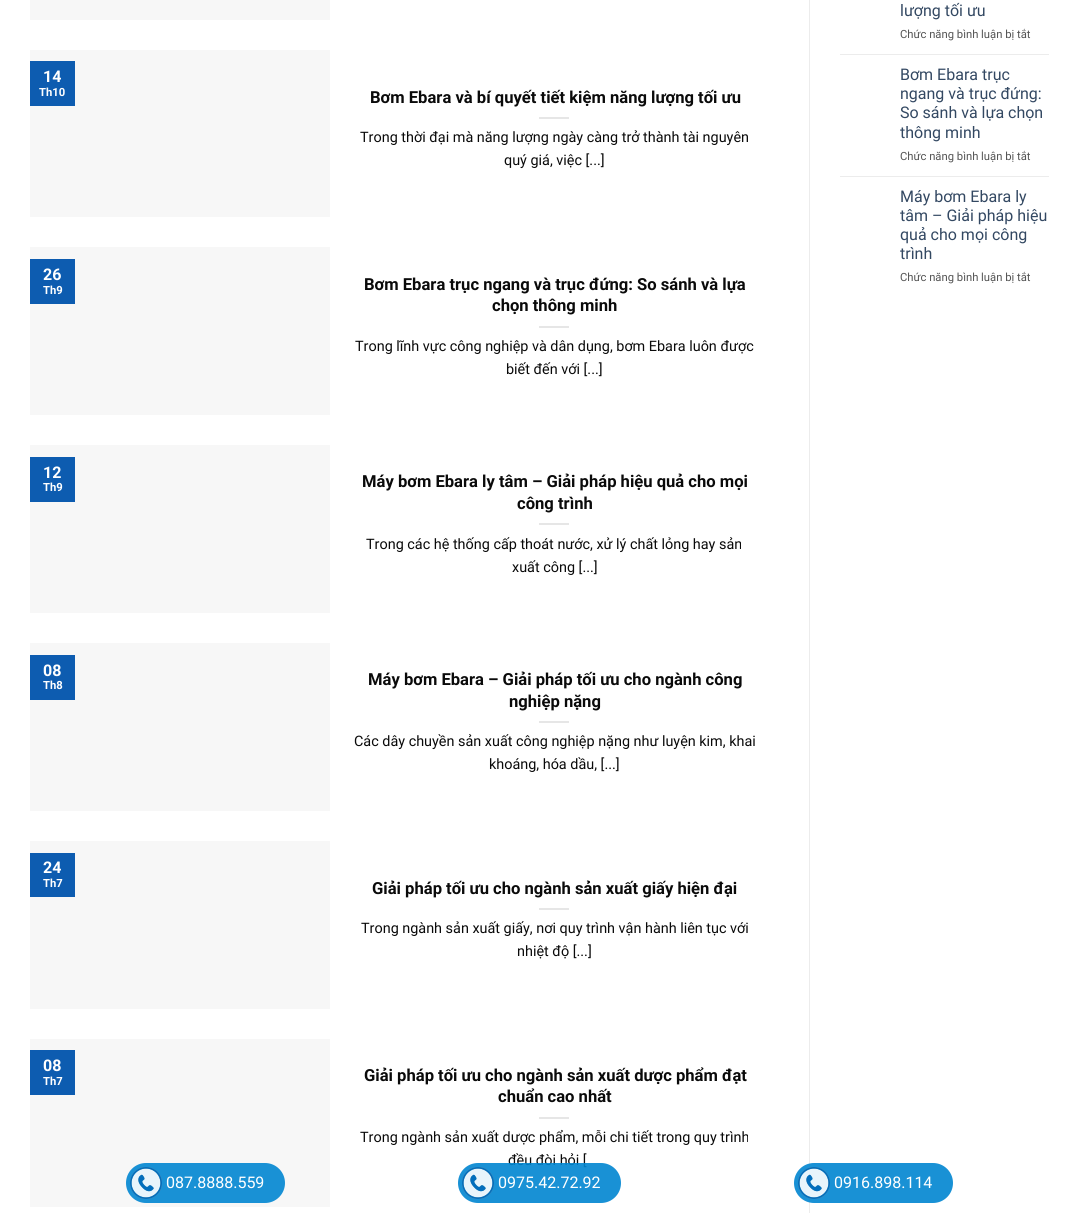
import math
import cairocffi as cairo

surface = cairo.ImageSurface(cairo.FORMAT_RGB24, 1079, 1213)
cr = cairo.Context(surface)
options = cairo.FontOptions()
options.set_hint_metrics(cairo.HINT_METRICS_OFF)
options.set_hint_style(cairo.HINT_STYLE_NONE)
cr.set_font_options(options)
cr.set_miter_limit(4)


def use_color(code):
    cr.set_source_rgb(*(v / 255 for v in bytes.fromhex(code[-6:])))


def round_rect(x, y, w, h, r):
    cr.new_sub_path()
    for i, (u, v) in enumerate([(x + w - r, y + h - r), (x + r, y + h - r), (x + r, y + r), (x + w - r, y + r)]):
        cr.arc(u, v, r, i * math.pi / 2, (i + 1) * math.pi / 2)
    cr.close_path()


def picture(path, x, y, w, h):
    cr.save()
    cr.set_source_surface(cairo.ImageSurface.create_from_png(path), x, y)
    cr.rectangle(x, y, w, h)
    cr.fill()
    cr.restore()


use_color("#ffffff")
cr.paint()
use_color("#f7f7f7")
cr.rectangle(30, 0, 300, 20)
cr.fill()
cr.rectangle(30, 50, 300, 167)
cr.fill()
use_color("#0d5cb0")
cr.rectangle(30, 61, 45, 45)
cr.fill()
cr.select_font_face("Roboto", cairo.FONT_SLANT_NORMAL, cairo.FONT_WEIGHT_BOLD)
cr.set_font_size(16)
use_color("#ffffff")
cr.move_to(43, 82)
cr.show_text("14")
cr.set_font_size(11.25)
cr.move_to(39, 96)
cr.show_text("Th10")
cr.set_font_size(16.6)
use_color("#0a0a0a")
cr.move_to(370, 103)
cr.show_text("Bơm Ebara và bí quyết tiết kiệm năng lượng tối ưu")
use_color("#e6e6e6")
cr.rectangle(539, 117, 30, 2)
cr.fill()
cr.select_font_face("Roboto")
cr.set_font_size(14.4)
use_color("#0a0a0a")
cr.move_to(360, 142)
cr.show_text("Trong thời đại mà năng lượng ngày càng trở thành tài nguyên")
cr.move_to(504, 165)
cr.show_text("quý giá, việc [...]")
use_color("#f7f7f7")
cr.rectangle(30, 247, 300, 168)
cr.fill()
use_color("#0d5cb0")
cr.rectangle(30, 259, 45, 45)
cr.fill()
cr.select_font_face("Roboto", cairo.FONT_SLANT_NORMAL, cairo.FONT_WEIGHT_BOLD)
cr.set_font_size(16)
use_color("#ffffff")
cr.move_to(43, 280)
cr.show_text("26")
cr.set_font_size(11.25)
cr.move_to(43, 294)
cr.show_text("Th9")
cr.set_font_size(16.6)
use_color("#0a0a0a")
cr.move_to(364, 290)
cr.show_text("Bơm Ebara trục ngang và trục đứng: So sánh và lựa")
cr.move_to(492, 311)
cr.show_text("chọn thông minh")
use_color("#e6e6e6")
cr.rectangle(539, 326, 30, 2)
cr.fill()
cr.select_font_face("Roboto")
cr.set_font_size(14.4)
use_color("#0a0a0a")
cr.move_to(355, 351)
cr.show_text("Trong lĩnh vực công nghiệp và dân dụng, bơm Ebara luôn được")
cr.move_to(506, 374)
cr.show_text("biết đến với [...]")
use_color("#f7f7f7")
cr.rectangle(30, 445, 300, 168)
cr.fill()
use_color("#0d5cb0")
cr.rectangle(30, 457, 45, 45)
cr.fill()
cr.select_font_face("Roboto", cairo.FONT_SLANT_NORMAL, cairo.FONT_WEIGHT_BOLD)
cr.set_font_size(16)
use_color("#ffffff")
cr.move_to(43, 478)
cr.show_text("12")
cr.set_font_size(11.25)
cr.move_to(43, 491)
cr.show_text("Th9")
cr.set_font_size(16.6)
use_color("#0a0a0a")
cr.move_to(362, 487)
cr.show_text("Máy bơm Ebara ly tâm – Giải pháp hiệu quả cho mọi")
cr.move_to(517, 509)
cr.show_text("công trình")
use_color("#e6e6e6")
cr.rectangle(539, 523, 30, 2)
cr.fill()
cr.select_font_face("Roboto")
cr.set_font_size(14.4)
use_color("#0a0a0a")
cr.move_to(366, 549)
cr.show_text("Trong các hệ thống cấp thoát nước, xử lý chất lỏng hay sản")
cr.move_to(512, 572)
cr.show_text("xuất công [...]")
use_color("#f7f7f7")
cr.rectangle(30, 643, 300, 168)
cr.fill()
use_color("#0d5cb0")
cr.rectangle(30, 655, 45, 45)
cr.fill()
cr.select_font_face("Roboto", cairo.FONT_SLANT_NORMAL, cairo.FONT_WEIGHT_BOLD)
cr.set_font_size(16)
use_color("#ffffff")
cr.move_to(43, 676)
cr.show_text("08")
cr.set_font_size(11.25)
cr.move_to(43, 689)
cr.show_text("Th8")
cr.set_font_size(16.6)
use_color("#0a0a0a")
cr.move_to(368, 685)
cr.show_text("Máy bơm Ebara – Giải pháp tối ưu cho ngành công")
cr.move_to(509, 707)
cr.show_text("nghiệp nặng")
use_color("#e6e6e6")
cr.rectangle(539, 721, 30, 2)
cr.fill()
cr.select_font_face("Roboto")
cr.set_font_size(14.4)
use_color("#0a0a0a")
cr.move_to(354, 746)
cr.show_text("Các dây chuyền sản xuất công nghiệp nặng như luyện kim, khai")
cr.move_to(489, 769)
cr.show_text("khoáng, hóa dầu, [...]")
use_color("#f7f7f7")
cr.rectangle(30, 841, 300, 168)
cr.fill()
use_color("#0d5cb0")
cr.rectangle(30, 853, 45, 44)
cr.fill()
cr.select_font_face("Roboto", cairo.FONT_SLANT_NORMAL, cairo.FONT_WEIGHT_BOLD)
cr.set_font_size(16)
use_color("#ffffff")
cr.move_to(43, 873)
cr.show_text("24")
cr.set_font_size(11.25)
cr.move_to(43, 887)
cr.show_text("Th7")
cr.set_font_size(16.6)
use_color("#0a0a0a")
cr.move_to(372, 894)
cr.show_text("Giải pháp tối ưu cho ngành sản xuất giấy hiện đại")
use_color("#e6e6e6")
cr.rectangle(539, 908, 30, 2)
cr.fill()
cr.select_font_face("Roboto")
cr.set_font_size(14.4)
use_color("#0a0a0a")
cr.move_to(361, 933)
cr.show_text("Trong ngành sản xuất giấy, nơi quy trình vận hành liên tục với")
cr.move_to(517, 956)
cr.show_text("nhiệt độ [...]")
use_color("#f7f7f7")
cr.rectangle(30, 1039, 300, 168)
cr.fill()
use_color("#0d5cb0")
cr.rectangle(30, 1050, 45, 45)
cr.fill()
cr.select_font_face("Roboto", cairo.FONT_SLANT_NORMAL, cairo.FONT_WEIGHT_BOLD)
cr.set_font_size(16)
use_color("#ffffff")
cr.move_to(43, 1071)
cr.show_text("08")
cr.set_font_size(11.25)
cr.move_to(43, 1085)
cr.show_text("Th7")
cr.set_font_size(16.6)
use_color("#0a0a0a")
cr.move_to(364, 1081)
cr.show_text("Giải pháp tối ưu cho ngành sản xuất dược phẩm đạt")
cr.move_to(498, 1102)
cr.show_text("chuẩn cao nhất")
use_color("#e6e6e6")
cr.rectangle(539, 1117, 30, 2)
cr.fill()
cr.select_font_face("Roboto")
cr.set_font_size(14.4)
use_color("#0a0a0a")
cr.move_to(360, 1142)
cr.show_text("Trong ngành sản xuất dược phẩm, mỗi chi tiết trong quy trình")
cr.move_to(508, 1165)
cr.show_text("đều đòi hỏi [")
use_color("#ececec")
cr.rectangle(809, 0, 1, 1213)
cr.fill()
cr.set_font_size(16)
use_color("#334862")
cr.move_to(900, 16)
cr.show_text("lượng tối ưu")
cr.set_font_size(11.25)
use_color("#545454")
cr.move_to(900, 38)
cr.show_text("Chức năng bình luận bị tắt")
use_color("#ececec")
cr.rectangle(840, 54, 209, 1)
cr.fill()
cr.set_font_size(16)
use_color("#334862")
cr.move_to(900, 80)
cr.show_text("Bơm Ebara trục")
cr.move_to(900, 99)
cr.show_text("ngang và trục đứng:")
cr.move_to(900, 118)
cr.show_text("So sánh và lựa chọn")
cr.move_to(900, 138)
cr.show_text("thông minh")
cr.set_font_size(11.25)
use_color("#545454")
cr.move_to(900, 160)
cr.show_text("Chức năng bình luận bị tắt")
use_color("#ececec")
cr.rectangle(840, 176, 209, 1)
cr.fill()
cr.set_font_size(16)
use_color("#334862")
cr.move_to(900, 202)
cr.show_text("Máy bơm Ebara ly")
cr.move_to(900, 221)
cr.show_text("tâm – Giải pháp hiệu")
cr.move_to(900, 240)
cr.show_text("quả cho mọi công")
cr.move_to(900, 259)
cr.show_text("trình")
cr.set_font_size(11.25)
use_color("#545454")
cr.move_to(900, 281)
cr.show_text("Chức năng bình luận bị tắt")
use_color("#1991d5")
round_rect(126, 1163, 159, 40, 20)
cr.fill()
picture("img1.png", 130, 1167, 32, 32)
cr.set_font_size(16)
use_color("#ffffff")
cr.move_to(166, 1188)
cr.show_text("087.8888.559")
cr.set_source_rgba(0, 0.525, 0.82, 0.9)
round_rect(458, 1163, 163, 40, 20)
cr.fill()
picture("img2.png", 462, 1167, 32, 32)
use_color("#ffffff")
cr.move_to(498, 1188)
cr.show_text("0975.42.72.92")
cr.set_source_rgba(0, 0.525, 0.82, 0.9)
round_rect(794, 1163, 159, 40, 20)
cr.fill()
picture("img3.png", 798, 1167, 32, 32)
use_color("#ffffff")
cr.move_to(834, 1188)
cr.show_text("0916.898.114")
surface.write_to_png("result.png")
